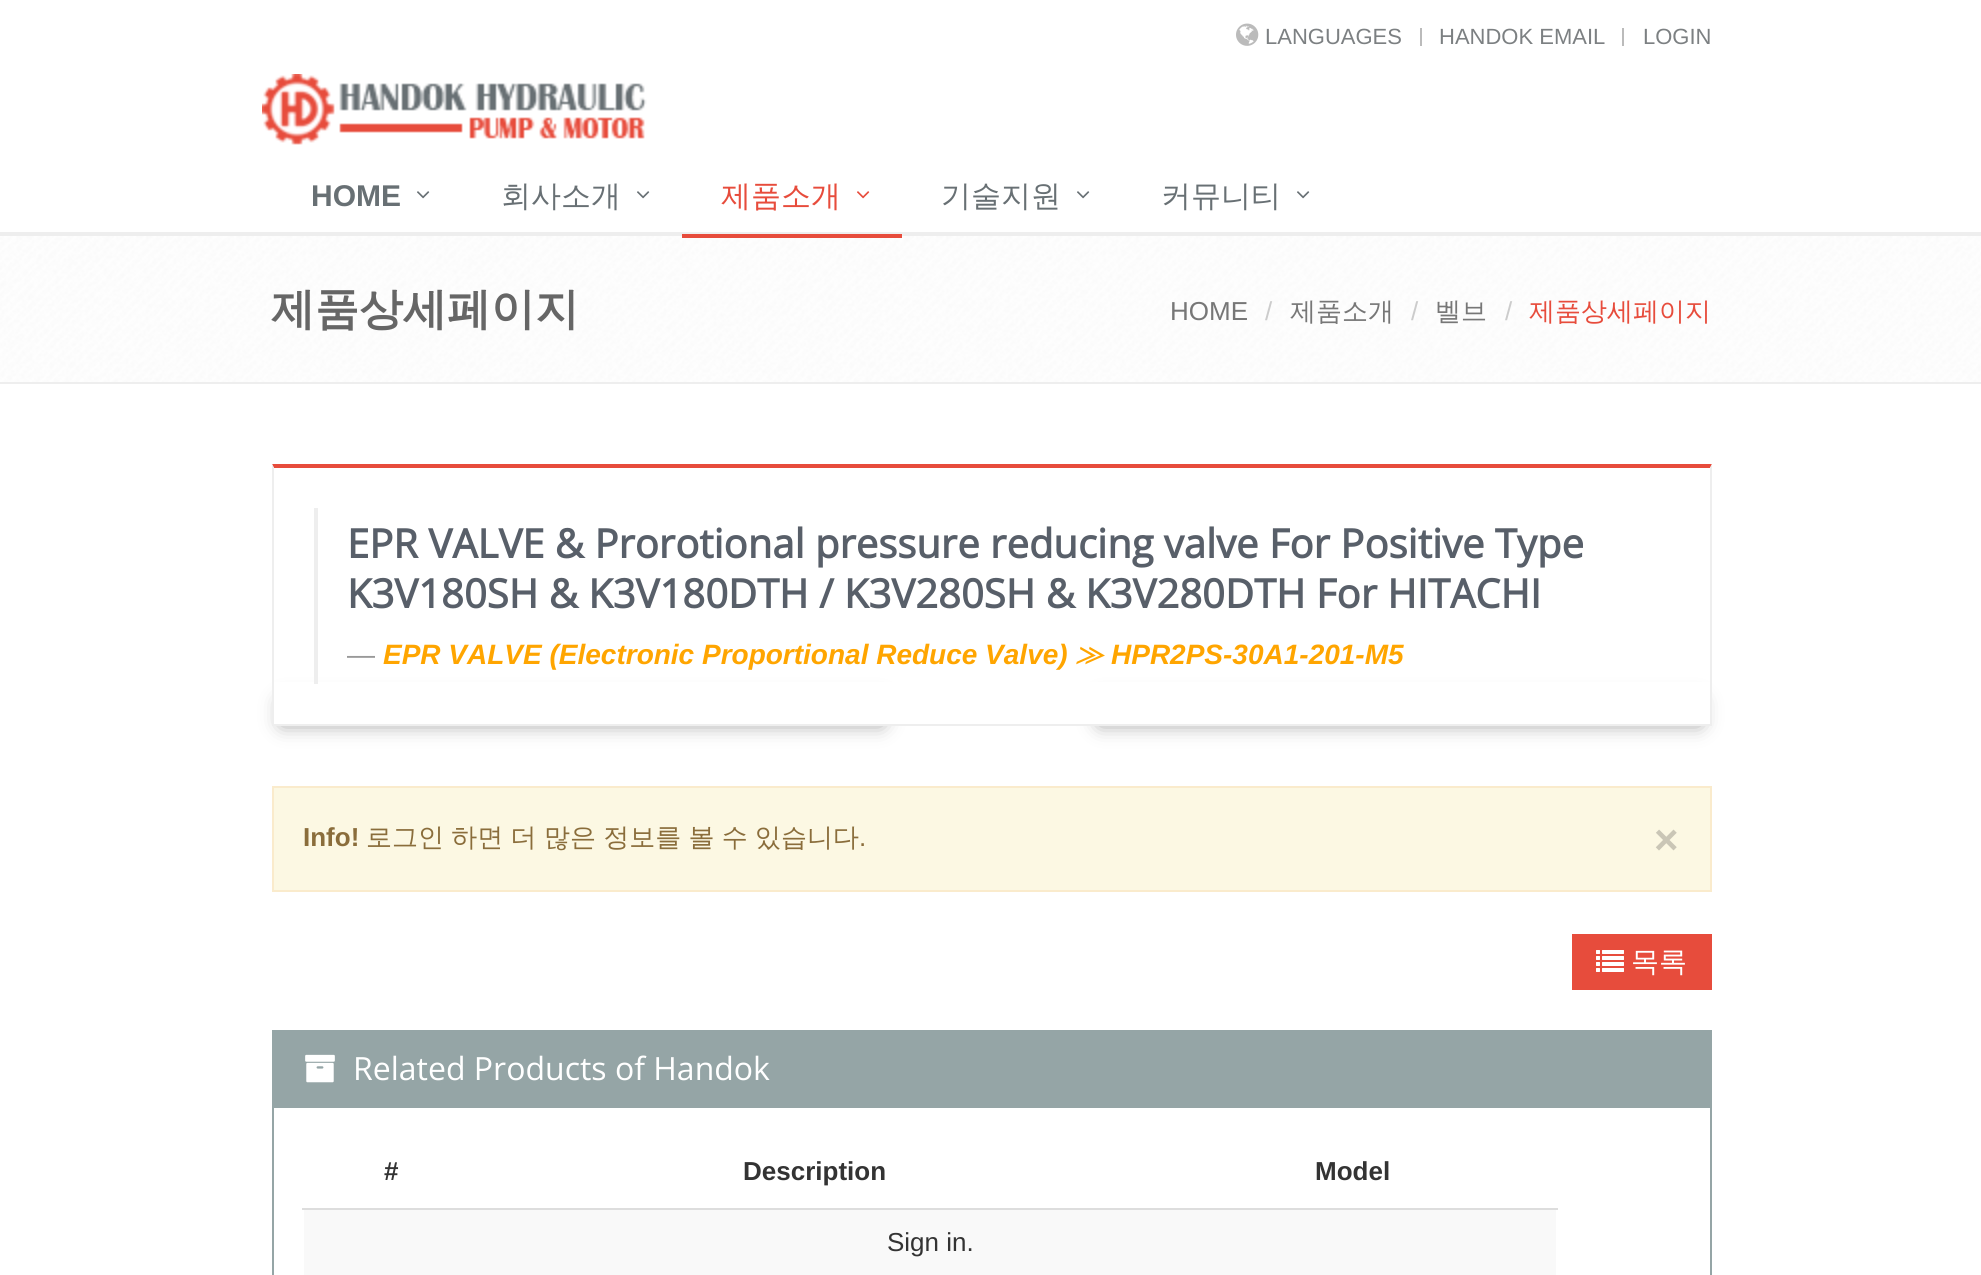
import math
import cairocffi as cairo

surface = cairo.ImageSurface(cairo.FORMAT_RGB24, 1981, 1275)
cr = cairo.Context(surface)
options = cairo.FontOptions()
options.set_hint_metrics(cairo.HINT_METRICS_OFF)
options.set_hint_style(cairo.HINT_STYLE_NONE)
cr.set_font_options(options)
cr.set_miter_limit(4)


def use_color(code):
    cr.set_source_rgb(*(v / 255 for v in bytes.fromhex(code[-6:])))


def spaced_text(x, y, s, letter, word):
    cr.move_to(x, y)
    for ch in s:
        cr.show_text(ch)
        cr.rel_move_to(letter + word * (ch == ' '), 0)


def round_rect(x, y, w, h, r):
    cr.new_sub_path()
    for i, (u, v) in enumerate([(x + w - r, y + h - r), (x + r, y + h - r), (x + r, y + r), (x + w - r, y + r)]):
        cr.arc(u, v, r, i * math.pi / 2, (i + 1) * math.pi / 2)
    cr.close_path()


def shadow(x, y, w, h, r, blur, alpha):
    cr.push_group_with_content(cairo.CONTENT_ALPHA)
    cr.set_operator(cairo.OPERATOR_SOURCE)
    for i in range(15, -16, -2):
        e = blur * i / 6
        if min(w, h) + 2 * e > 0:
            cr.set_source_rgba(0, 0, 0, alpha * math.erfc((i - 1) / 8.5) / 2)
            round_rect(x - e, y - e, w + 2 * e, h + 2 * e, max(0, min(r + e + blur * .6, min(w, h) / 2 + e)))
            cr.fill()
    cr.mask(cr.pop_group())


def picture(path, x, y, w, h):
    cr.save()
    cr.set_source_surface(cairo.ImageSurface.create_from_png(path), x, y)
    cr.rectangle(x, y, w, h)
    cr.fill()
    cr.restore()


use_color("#ffffff")
cr.paint()
use_color("#eeeeee")
cr.rectangle(0, 232, 1981, 4)
cr.fill()
picture("img1.png", 1236, 23, 23, 23)
cr.select_font_face("Liberation Sans")
cr.set_font_size(22)
use_color("#7c8082")
cr.move_to(1265, 44)
cr.show_text("LANGUAGES")
use_color("#bbbbbb")
cr.rectangle(1420, 28, 2, 18)
cr.fill()
use_color("#7c8082")
cr.move_to(1439, 44)
cr.show_text("HANDOK EMAIL")
use_color("#bbbbbb")
cr.rectangle(1622, 28, 2, 18)
cr.fill()
use_color("#7c8082")
cr.move_to(1643, 44)
cr.show_text("LOGIN")
picture("img2.png", 262, 74, 385, 71)
cr.select_font_face("Liberation Sans", cairo.FONT_SLANT_NORMAL, cairo.FONT_WEIGHT_BOLD)
cr.set_font_size(30)
use_color("#687074")
cr.move_to(311, 206)
cr.show_text("HOME")
picture("img3.png", 417, 191, 13, 8)
cr.select_font_face("WenQuanYi Zen Hei Medium")
cr.move_to(501, 206)
cr.show_text("회사소개")
picture("img3.png", 637, 191, 13, 8)
picture("img5.png", 0, 236, 1981, 146)
use_color("#e74c3c")
cr.rectangle(682, 234, 220, 4)
cr.fill()
cr.move_to(721, 206)
cr.show_text("제품소개")
picture("img4.png", 857, 191, 13, 8)
use_color("#687074")
cr.move_to(941, 206)
cr.show_text("기술지원")
picture("img3.png", 1077, 191, 13, 8)
cr.move_to(1161, 206)
cr.show_text("커뮤니티")
picture("img3.png", 1297, 191, 13, 8)
use_color("#eeeeee")
cr.rectangle(0, 382, 1981, 2)
cr.fill()
cr.select_font_face("WenQuanYi Zen Hei", cairo.FONT_SLANT_NORMAL, cairo.FONT_WEIGHT_BOLD)
cr.set_font_size(44)
use_color("#666666")
cr.move_to(271, 324)
cr.show_text("제품상세페이지")
cr.select_font_face("Liberation Sans")
cr.set_font_size(26)
use_color("#777777")
cr.move_to(1170, 320)
cr.show_text("HOME")
use_color("#cccccc")
cr.move_to(1265, 320)
cr.show_text("/")
cr.select_font_face("WenQuanYi Zen Hei Medium")
use_color("#777777")
cr.move_to(1290, 320)
cr.show_text("제품소개")
cr.select_font_face("Liberation Sans")
use_color("#cccccc")
cr.move_to(1411, 320)
cr.show_text("/")
cr.select_font_face("WenQuanYi Zen Hei Medium")
use_color("#777777")
cr.move_to(1435, 320)
cr.show_text("벨브")
cr.select_font_face("Liberation Sans")
use_color("#cccccc")
cr.move_to(1505, 320)
cr.show_text("/")
cr.select_font_face("WenQuanYi Zen Hei Medium")
use_color("#e74c3c")
cr.move_to(1529, 320)
cr.show_text("제품상세페이지")
use_color("#999999")
shadow(282, 702, 600, 22, 0, 10, 1)
shadow(1100, 702, 600, 22, 0, 10, 1)
use_color("#ffffff")
cr.rectangle(274, 682, 1436, 42)
cr.fill()
use_color("#e74c3c")
cr.new_path()
cr.move_to(272, 464)
cr.line_to(1712, 464)
cr.line_to(1710, 468)
cr.line_to(274, 468)
cr.close_path()
cr.fill()
use_color("#eeeeee")
cr.new_path()
cr.move_to(1712, 464)
cr.line_to(1712, 726)
cr.line_to(1710, 724)
cr.line_to(1710, 468)
cr.close_path()
cr.fill()
cr.rectangle(272, 724, 1440, 2)
cr.fill()
cr.new_path()
cr.move_to(272, 726)
cr.line_to(272, 464)
cr.line_to(274, 468)
cr.line_to(274, 724)
cr.close_path()
cr.fill()
cr.rectangle(314, 508, 4, 176)
cr.fill()
cr.select_font_face("Open Sans", cairo.FONT_SLANT_NORMAL, cairo.FONT_WEIGHT_BOLD)
cr.set_font_size(40)
use_color("#585f69")
cr.move_to(347, 558)
cr.show_text("EPR VALVE & Prorotional pressure reducing valve For Positive Type")
cr.move_to(347, 608)
cr.show_text("K3V180SH & K3V180DTH / K3V280SH & K3V280DTH For HITACHI")
cr.select_font_face("Liberation Sans")
cr.set_font_size(28)
use_color("#999999")
cr.move_to(347, 664)
cr.show_text("—")
cr.select_font_face("Liberation Sans", cairo.FONT_SLANT_ITALIC, cairo.FONT_WEIGHT_BOLD)
use_color("#ffa500")
cr.move_to(383, 664)
cr.show_text("EPR VALVE (Electronic Proportional Reduce Valve)")
cr.select_font_face("WenQuanYi Zen Hei", cairo.FONT_SLANT_ITALIC, cairo.FONT_WEIGHT_BOLD)
cr.move_to(1075, 664)
cr.show_text("≫")
cr.select_font_face("Liberation Sans", cairo.FONT_SLANT_ITALIC, cairo.FONT_WEIGHT_BOLD)
cr.move_to(1111, 664)
cr.show_text("HPR2PS-30A1-201-M5")
use_color("#fcf8e3")
cr.rectangle(273, 787, 1438, 104)
cr.fill_preserve()
use_color("#faebcc")
cr.stroke()
cr.select_font_face("Liberation Sans", cairo.FONT_SLANT_NORMAL, cairo.FONT_WEIGHT_BOLD)
cr.set_font_size(26)
use_color("#8a6d3b")
cr.move_to(303, 846)
cr.show_text("Info!")
cr.select_font_face("WenQuanYi Zen Hei Medium")
spaced_text(366, 846, "로그인 하면 더 많은 정보를 볼 수 있습니다", 0, -0.5)
cr.select_font_face("Liberation Sans")
cr.move_to(859, 846)
cr.show_text(".")
cr.select_font_face("Liberation Sans", cairo.FONT_SLANT_NORMAL, cairo.FONT_WEIGHT_BOLD)
cr.set_font_size(42)
use_color("#cac6b6")
cr.move_to(1654, 854)
cr.show_text("×")
use_color("#e74c3c")
cr.rectangle(1572, 934, 140, 56)
cr.fill()
picture("img6.png", 1596, 950, 28, 22)
cr.select_font_face("WenQuanYi Zen Hei Medium")
cr.set_font_size(28)
use_color("#ffffff")
cr.move_to(1631, 971)
cr.show_text("목록")
cr.rectangle(273, 1031, 1438, 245)
use_color("#95a5a6")
cr.stroke()
cr.rectangle(274, 1032, 1436, 76)
cr.fill()
picture("img7.png", 305, 1054, 30, 29)
cr.select_font_face("Open Sans")
cr.set_font_size(32)
use_color("#ffffff")
cr.move_to(353, 1080)
cr.show_text("Related Products of Handok")
cr.select_font_face("Liberation Sans", cairo.FONT_SLANT_NORMAL, cairo.FONT_WEIGHT_BOLD)
cr.set_font_size(26)
use_color("#333333")
cr.move_to(384, 1180)
cr.show_text("#")
cr.move_to(743, 1180)
cr.show_text("Description")
cr.move_to(1315, 1180)
cr.show_text("Model")
use_color("#f9f9f9")
cr.rectangle(304, 1210, 1252, 65)
cr.fill()
use_color("#dddddd")
cr.rectangle(302, 1208, 1256, 2)
cr.fill()
cr.select_font_face("Liberation Sans")
use_color("#333333")
cr.move_to(887, 1251)
cr.show_text("Sign in.")
surface.write_to_png("result.png")
